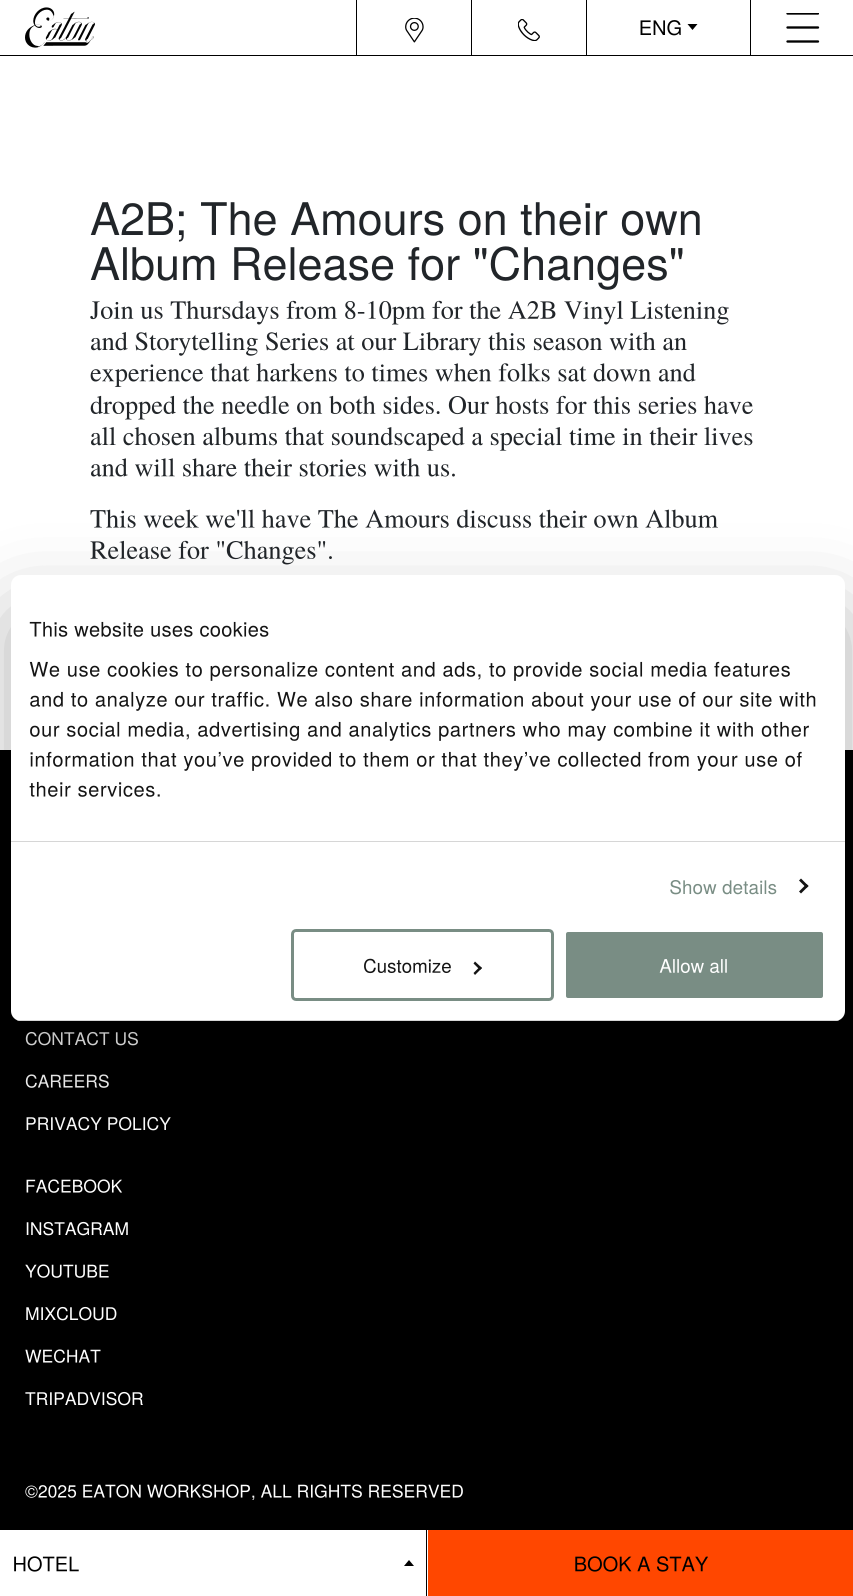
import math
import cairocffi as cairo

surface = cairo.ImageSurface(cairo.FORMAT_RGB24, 853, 1596)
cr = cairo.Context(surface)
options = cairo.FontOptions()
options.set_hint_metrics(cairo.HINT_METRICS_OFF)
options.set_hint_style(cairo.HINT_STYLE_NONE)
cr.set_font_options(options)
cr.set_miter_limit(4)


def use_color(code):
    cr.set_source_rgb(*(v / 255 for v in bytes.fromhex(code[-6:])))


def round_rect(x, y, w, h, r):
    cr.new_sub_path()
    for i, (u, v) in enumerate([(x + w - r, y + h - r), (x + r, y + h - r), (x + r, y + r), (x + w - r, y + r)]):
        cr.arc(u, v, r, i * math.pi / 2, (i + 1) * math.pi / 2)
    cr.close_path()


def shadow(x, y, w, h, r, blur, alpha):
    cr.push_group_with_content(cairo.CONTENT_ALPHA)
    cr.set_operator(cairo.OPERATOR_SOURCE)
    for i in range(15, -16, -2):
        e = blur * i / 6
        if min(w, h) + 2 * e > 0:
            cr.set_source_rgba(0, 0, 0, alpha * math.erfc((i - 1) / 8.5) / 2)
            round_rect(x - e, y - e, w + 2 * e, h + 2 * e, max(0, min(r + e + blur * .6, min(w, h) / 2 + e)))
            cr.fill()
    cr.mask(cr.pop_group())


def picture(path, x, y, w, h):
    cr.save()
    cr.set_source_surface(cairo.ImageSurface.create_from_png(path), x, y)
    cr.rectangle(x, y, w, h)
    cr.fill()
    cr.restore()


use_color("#ffffff")
cr.paint()
use_color("#000000")
cr.rectangle(0, 55, 853, 1)
cr.fill()
picture("img1.png", 25, 7, 70, 41)
cr.rectangle(356, 0, 1, 55)
cr.fill()
picture("img2.png", 405, 18, 19, 25)
cr.rectangle(471, 0, 1, 55)
cr.fill()
picture("img3.png", 518, 19, 22, 22)
cr.rectangle(586, 0, 1, 55)
cr.fill()
picture("img4.png", 640, 20, 41, 16)
cr.new_path()
cr.move_to(687.5, 24)
cr.line_to(697.5, 24)
cr.line_to(692.5, 30)
cr.close_path()
cr.fill()
cr.rectangle(750, 0, 1, 55)
cr.fill()
cr.new_path()
cr.move_to(818, 41.5)
cr.line_to(787.5, 41.5)
cr.set_line_width(2.3)
cr.set_line_cap(cairo.LINE_CAP_ROUND)
cr.stroke()
cr.save()
cr.rectangle(786, 13, 33, 30)
cr.clip()
cr.new_path()
cr.move_to(818, 13.5)
cr.line_to(787.5, 13.5)
cr.stroke()
cr.restore()
cr.new_path()
cr.move_to(818, 27.5)
cr.line_to(787.5, 27.5)
cr.stroke()
picture("img5.png", 90, 202, 610, 40)
picture("img6.png", 90, 246, 593, 44)
picture("img7.png", 90, 300, 639, 25)
picture("img8.png", 91, 332, 596, 24)
picture("img9.png", 90, 363, 606, 24)
picture("img10.png", 90, 395, 663, 25)
picture("img11.png", 91, 427, 662, 24)
picture("img12.png", 91, 458, 364, 19)
picture("img13.png", 90, 509, 628, 19)
picture("img14.png", 90, 540, 242, 25)
cr.rectangle(0, 750, 853, 779)
cr.fill()
picture("img15.png", 25, 1031, 113, 15)
picture("img16.png", 25, 1074, 84, 14)
picture("img17.png", 26, 1116, 145, 15)
picture("img18.png", 26, 1179, 96, 14)
picture("img19.png", 26, 1221, 102, 15)
picture("img20.png", 25, 1264, 84, 14)
picture("img21.png", 26, 1306, 91, 15)
picture("img22.png", 25, 1349, 76, 14)
picture("img23.png", 25, 1391, 118, 15)
picture("img24.png", 25, 1484, 438, 16)
cr.rectangle(0, 1529, 853, 1)
cr.fill()
picture("img25.png", 14, 1556, 65, 16)
cr.new_path()
cr.move_to(414, 1566)
cr.line_to(404, 1566)
cr.line_to(409, 1560)
cr.close_path()
cr.fill()
cr.rectangle(426, 1529, 1, 67)
cr.fill()
use_color("#ff4700")
cr.rectangle(428, 1530, 425, 66)
cr.fill()
picture("img26.png", 575, 1556, 133, 16)
use_color("#000000")
shadow(11, 615, 834, 446, 10, 42.5, 0.3)
use_color("#ffffff")
round_rect(11, 575, 834, 446, 10)
cr.fill()
use_color("#d6d6d6")
cr.rectangle(11, 841, 834, 1)
cr.fill()
picture("img27.png", 29, 621, 240, 16)
picture("img28.png", 29, 661, 761, 20)
picture("img29.png", 30, 691, 786, 20)
picture("img30.png", 30, 721, 779, 20)
picture("img31.png", 30, 751, 772, 20)
picture("img32.png", 29, 781, 131, 16)
picture("img33.png", 670, 880, 107, 15)
use_color("#141414")
cr.new_path()
cr.move_to(801, 878.5)
cr.line_to(808.5, 886)
cr.line_to(806.5, 888)
cr.line_to(799, 880.5)
cr.close_path()
cr.fill()
cr.new_path()
cr.move_to(806.5, 884)
cr.line_to(808.5, 886)
cr.line_to(801, 893.5)
cr.line_to(799, 891.5)
cr.close_path()
cr.fill()
cr.save()
round_rect(11, 575, 834, 446, 10)
cr.clip()
use_color("#d6d6d6")
cr.rectangle(11, 1020, 834, 1)
cr.fill()
cr.restore()
round_rect(292.5, 930.5, 260, 69, 3.5)
use_color("#798d84")
cr.set_line_width(3)
cr.set_line_cap(cairo.LINE_CAP_BUTT)
cr.stroke()
picture("img34.png", 364, 958, 87, 16)
use_color("#141414")
cr.new_path()
cr.move_to(475, 961.5)
cr.line_to(482, 968)
cr.line_to(480, 970)
cr.line_to(473.5, 963.5)
cr.close_path()
cr.fill()
cr.new_path()
cr.move_to(480, 966.5)
cr.line_to(482, 968)
cr.line_to(475, 975)
cr.line_to(473.5, 973)
cr.close_path()
cr.fill()
use_color("#798d84")
round_rect(564.5, 930.5, 260, 69, 3.5)
cr.fill_preserve()
use_color("#ffffff")
cr.stroke()
picture("img35.png", 659, 959, 68, 14)
surface.write_to_png("result.png")
